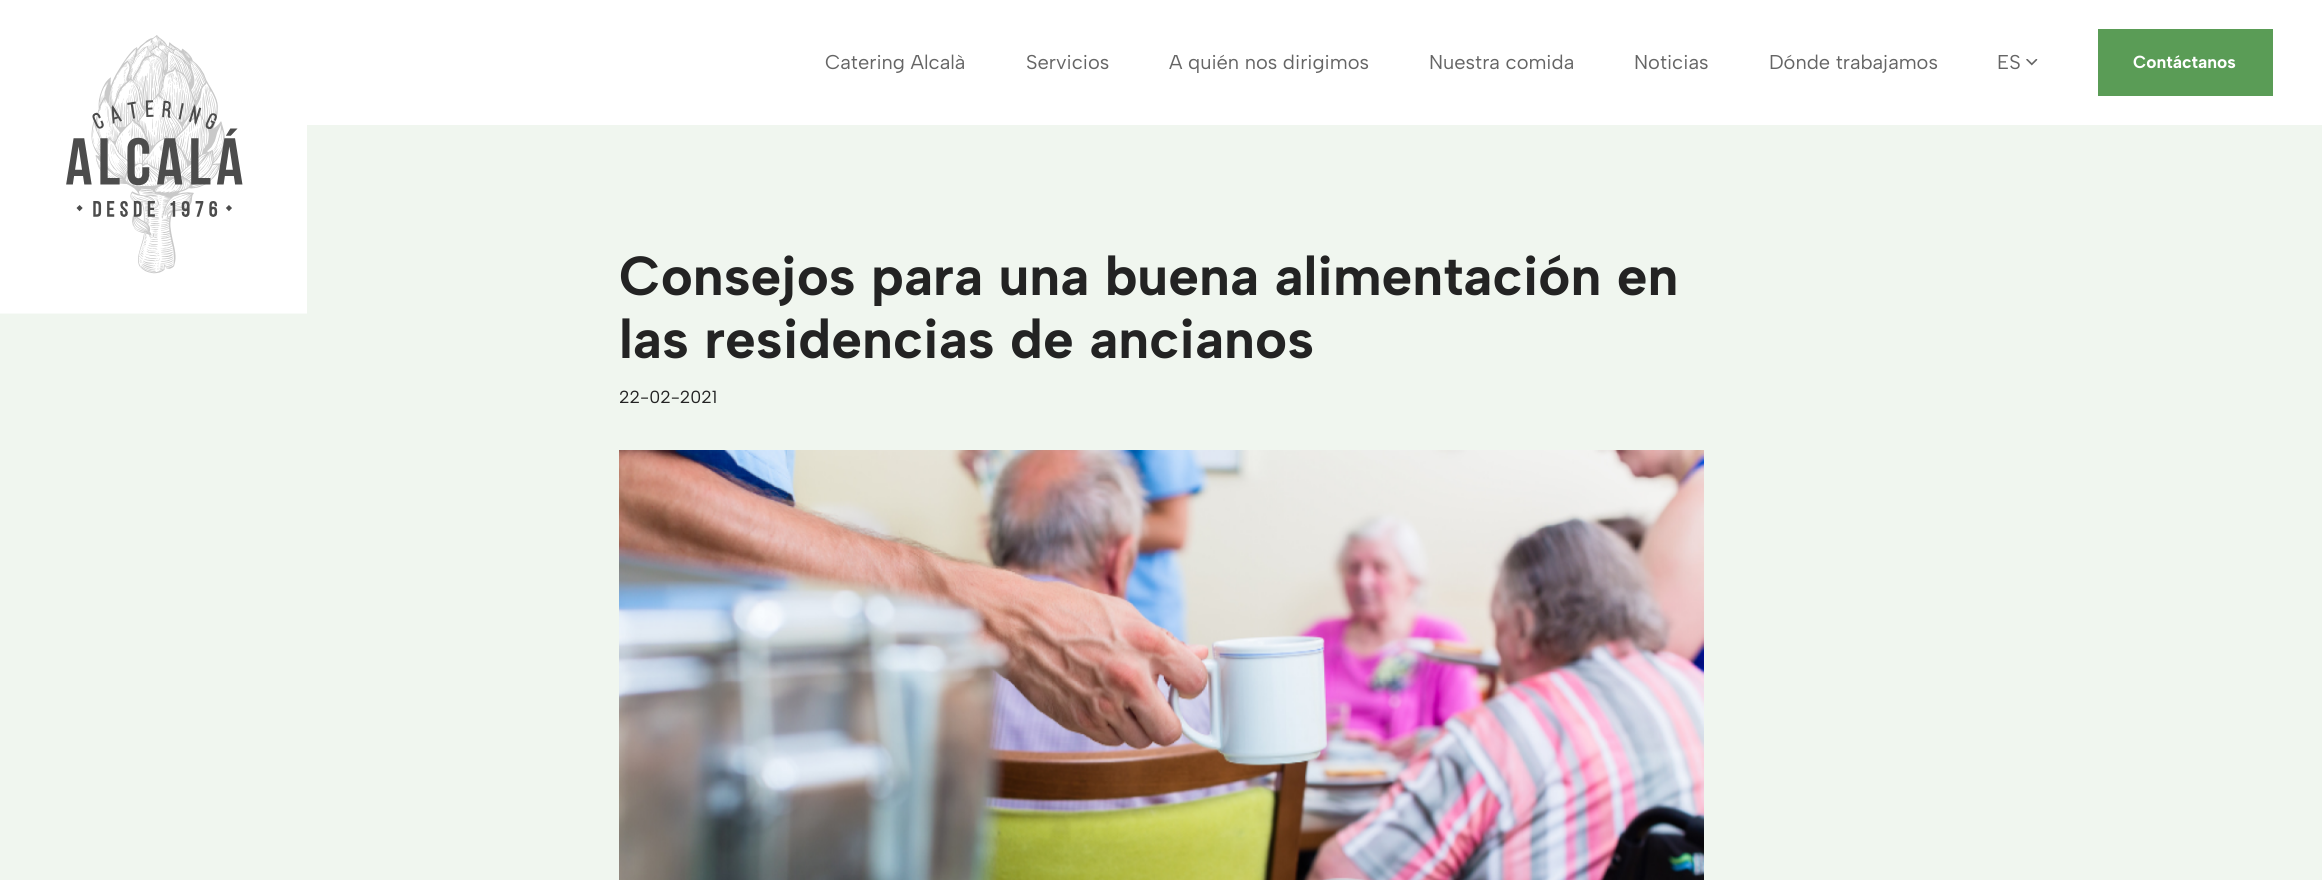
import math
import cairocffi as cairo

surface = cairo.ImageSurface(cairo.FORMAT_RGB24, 2322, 880)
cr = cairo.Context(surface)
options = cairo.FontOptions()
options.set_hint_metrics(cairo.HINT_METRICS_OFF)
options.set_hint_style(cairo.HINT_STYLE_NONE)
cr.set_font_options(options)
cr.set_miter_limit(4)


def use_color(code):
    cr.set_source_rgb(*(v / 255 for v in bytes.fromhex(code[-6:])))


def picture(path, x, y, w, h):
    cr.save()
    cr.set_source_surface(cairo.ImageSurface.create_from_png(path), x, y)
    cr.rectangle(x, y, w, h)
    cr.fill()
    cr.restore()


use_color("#f0f6ef")
cr.paint()
use_color("#ffffff")
cr.rectangle(0, 0, 2322, 125)
cr.fill()
picture("img1.png", 0, 35, 307, 279)
cr.select_font_face("Albert Sans")
cr.set_font_size(20)
use_color("#656565")
cr.move_to(825, 69)
cr.show_text("Catering Alcalà")
cr.move_to(1026, 69)
cr.show_text("Servicios")
cr.move_to(1169, 69)
cr.show_text("A quién nos dirigimos")
cr.move_to(1429, 69)
cr.show_text("Nuestra comida")
cr.move_to(1634, 69)
cr.show_text("Noticias")
cr.move_to(1769, 69)
cr.show_text("Dónde trabajamos")
cr.move_to(1997, 69)
cr.show_text("ES")
picture("img2.png", 2026, 59, 12, 7)
use_color("#5a9c56")
cr.rectangle(2098, 29, 175, 67)
cr.fill()
cr.select_font_face("Albert Sans", cairo.FONT_SLANT_NORMAL, cairo.FONT_WEIGHT_BOLD)
cr.set_font_size(17.5)
use_color("#ffffff")
cr.move_to(2133, 68)
cr.show_text("Contáctanos")
cr.set_font_size(55)
use_color("#232323")
cr.move_to(619, 295)
cr.show_text("Consejos para una buena alimentación en")
cr.move_to(619, 358)
cr.show_text("las residencias de ancianos")
cr.select_font_face("Albert Sans")
cr.set_font_size(17.5)
cr.move_to(619, 403)
cr.show_text("22-02-2021")
picture("img3.png", 619, 450, 1085, 430)
surface.write_to_png("result.png")
